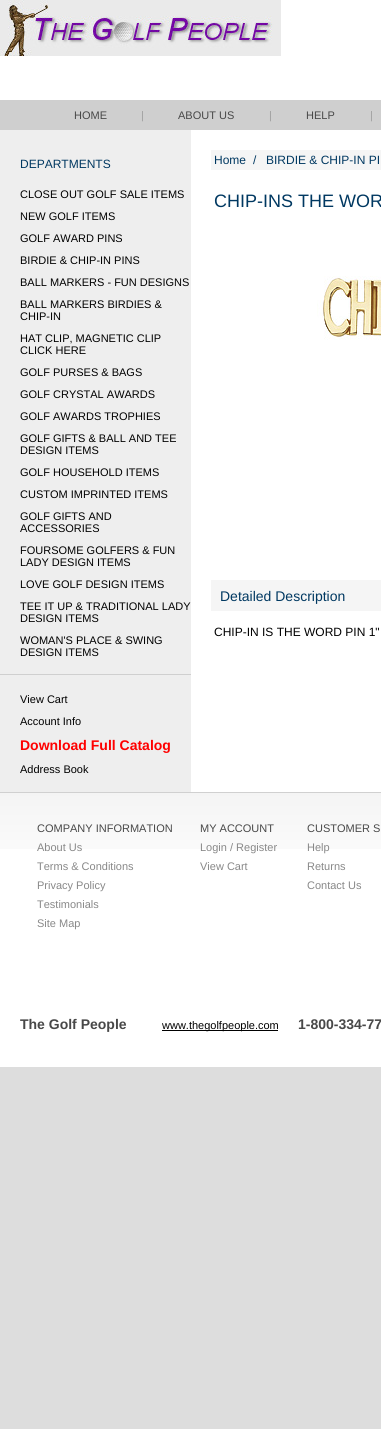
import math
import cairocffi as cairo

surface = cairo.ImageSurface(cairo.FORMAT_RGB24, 381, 1429)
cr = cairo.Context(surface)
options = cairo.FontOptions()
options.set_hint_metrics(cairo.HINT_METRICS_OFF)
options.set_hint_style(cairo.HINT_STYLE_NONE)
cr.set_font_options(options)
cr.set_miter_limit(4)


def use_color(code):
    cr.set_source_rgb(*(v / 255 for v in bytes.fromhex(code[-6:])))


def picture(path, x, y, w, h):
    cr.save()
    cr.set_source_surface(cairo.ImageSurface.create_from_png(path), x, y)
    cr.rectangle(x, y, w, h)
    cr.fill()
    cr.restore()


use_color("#dddddd")
cr.paint()
use_color("#ffffff")
cr.rectangle(0, 0, 381, 100)
cr.fill()
picture("img1.png", 0, 0, 281, 56)
use_color("#cfcfcf")
cr.rectangle(0, 100, 381, 30)
cr.fill()
cr.select_font_face("Liberation Sans")
cr.set_font_size(11)
use_color("#484848")
cr.move_to(74, 119)
cr.show_text("HOME")
use_color("#9f9f9f")
cr.move_to(141, 119)
cr.show_text("|")
use_color("#484848")
cr.move_to(178, 119)
cr.show_text("ABOUT US")
use_color("#9f9f9f")
cr.move_to(269, 119)
cr.show_text("|")
use_color("#484848")
cr.move_to(306, 119)
cr.show_text("HELP")
use_color("#9f9f9f")
cr.move_to(370, 119)
cr.show_text("|")
use_color("#eeeeee")
cr.rectangle(0, 130, 191, 662)
cr.fill()
cr.set_font_size(12)
use_color("#003861")
cr.move_to(20, 168)
cr.show_text("DEPARTMENTS")
cr.set_font_size(11)
use_color("#000000")
cr.move_to(20, 198)
cr.show_text("CLOSE OUT GOLF SALE ITEMS")
cr.move_to(20, 220)
cr.show_text("NEW GOLF ITEMS")
cr.move_to(20, 242)
cr.show_text("GOLF AWARD PINS")
cr.move_to(20, 264)
cr.show_text("BIRDIE & CHIP-IN PINS")
cr.move_to(20, 286)
cr.show_text("BALL MARKERS - FUN DESIGNS")
cr.move_to(20, 308)
cr.show_text("BALL MARKERS BIRDIES &")
cr.move_to(20, 320)
cr.show_text("CHIP-IN")
cr.move_to(20, 342)
cr.show_text("HAT CLIP, MAGNETIC CLIP")
cr.move_to(20, 354)
cr.show_text("CLICK HERE")
cr.move_to(20, 376)
cr.show_text("GOLF PURSES & BAGS")
cr.move_to(20, 398)
cr.show_text("GOLF CRYSTAL AWARDS")
cr.move_to(20, 420)
cr.show_text("GOLF AWARDS TROPHIES")
cr.move_to(20, 442)
cr.show_text("GOLF GIFTS & BALL AND TEE")
cr.move_to(20, 454)
cr.show_text("DESIGN ITEMS")
cr.move_to(20, 476)
cr.show_text("GOLF HOUSEHOLD ITEMS")
cr.move_to(20, 498)
cr.show_text("CUSTOM IMPRINTED ITEMS")
cr.move_to(20, 520)
cr.show_text("GOLF GIFTS AND")
cr.move_to(20, 532)
cr.show_text("ACCESSORIES")
cr.move_to(20, 554)
cr.show_text("FOURSOME GOLFERS & FUN")
cr.move_to(20, 566)
cr.show_text("LADY DESIGN ITEMS")
cr.move_to(20, 588)
cr.show_text("LOVE GOLF DESIGN ITEMS")
cr.move_to(20, 610)
cr.show_text("TEE IT UP & TRADITIONAL LADY")
cr.move_to(20, 622)
cr.show_text("DESIGN ITEMS")
cr.move_to(20, 644)
cr.show_text("WOMAN'S PLACE & SWING")
cr.move_to(20, 656)
cr.show_text("DESIGN ITEMS")
use_color("#cfcfcf")
cr.rectangle(0, 674, 191, 1)
cr.fill()
use_color("#000000")
cr.move_to(20, 703)
cr.show_text("View Cart")
cr.move_to(20, 725)
cr.show_text("Account Info")
cr.select_font_face("Liberation Sans", cairo.FONT_SLANT_NORMAL, cairo.FONT_WEIGHT_BOLD)
cr.set_font_size(14)
use_color("#ff0000")
cr.move_to(20, 750)
cr.show_text("Download Full Catalog")
cr.select_font_face("Liberation Sans")
cr.set_font_size(11)
use_color("#000000")
cr.move_to(20, 773)
cr.show_text("Address Book")
use_color("#ffffff")
cr.rectangle(191, 130, 190, 662)
cr.fill()
use_color("#f5f5f5")
cr.rectangle(211, 150, 170, 20)
cr.fill()
cr.set_font_size(12)
use_color("#003861")
cr.move_to(214, 164)
cr.show_text("Home")
cr.move_to(253, 164)
cr.show_text("/")
cr.move_to(266, 164)
cr.show_text("BIRDIE & CHIP-IN PI")
cr.set_font_size(18)
cr.move_to(214, 207)
cr.show_text("CHIP-INS THE WOR")
picture("img2.png", 317, 276, 64, 64)
use_color("#f5f5f5")
cr.rectangle(211, 580, 170, 31)
cr.fill()
cr.set_font_size(14)
use_color("#003861")
cr.move_to(220, 601)
cr.show_text("Detailed Description")
cr.set_font_size(12)
use_color("#000000")
cr.move_to(214, 636)
cr.show_text("CHIP-IN IS THE WORD PIN 1\"")
use_color("#ffffff")
cr.rectangle(0, 849, 381, 218)
cr.fill()
picture("img3.png", 0, 792, 381, 57)
cr.set_font_size(11)
use_color("#484848")
cr.move_to(37, 832)
cr.show_text("COMPANY INFORMATION")
use_color("#888888")
cr.move_to(37, 851)
cr.show_text("About Us")
cr.move_to(37, 870)
cr.show_text("Terms & Conditions")
cr.move_to(37, 889)
cr.show_text("Privacy Policy")
cr.move_to(37, 908)
cr.show_text("Testimonials")
cr.move_to(37, 927)
cr.show_text("Site Map")
use_color("#484848")
cr.move_to(200, 832)
cr.show_text("MY ACCOUNT")
use_color("#888888")
cr.move_to(200, 851)
cr.show_text("Login / Register")
cr.move_to(200, 870)
cr.show_text("View Cart")
use_color("#484848")
cr.move_to(307, 832)
cr.show_text("CUSTOMER S")
use_color("#888888")
cr.move_to(307, 851)
cr.show_text("Help")
cr.move_to(307, 870)
cr.show_text("Returns")
cr.move_to(307, 889)
cr.show_text("Contact Us")
cr.select_font_face("Liberation Sans", cairo.FONT_SLANT_NORMAL, cairo.FONT_WEIGHT_BOLD)
cr.set_font_size(14)
use_color("#484848")
cr.move_to(20, 1029)
cr.show_text("The Golf People")
use_color("#000000")
cr.rectangle(162, 1030, 116, 1)
cr.fill()
cr.select_font_face("Liberation Sans")
cr.set_font_size(11)
cr.move_to(162, 1029)
cr.show_text("www.thegolfpeople.com")
cr.select_font_face("Liberation Sans", cairo.FONT_SLANT_NORMAL, cairo.FONT_WEIGHT_BOLD)
cr.set_font_size(14)
use_color("#484848")
cr.move_to(298, 1029)
cr.show_text("1-800-334-77")
surface.write_to_png("result.png")
